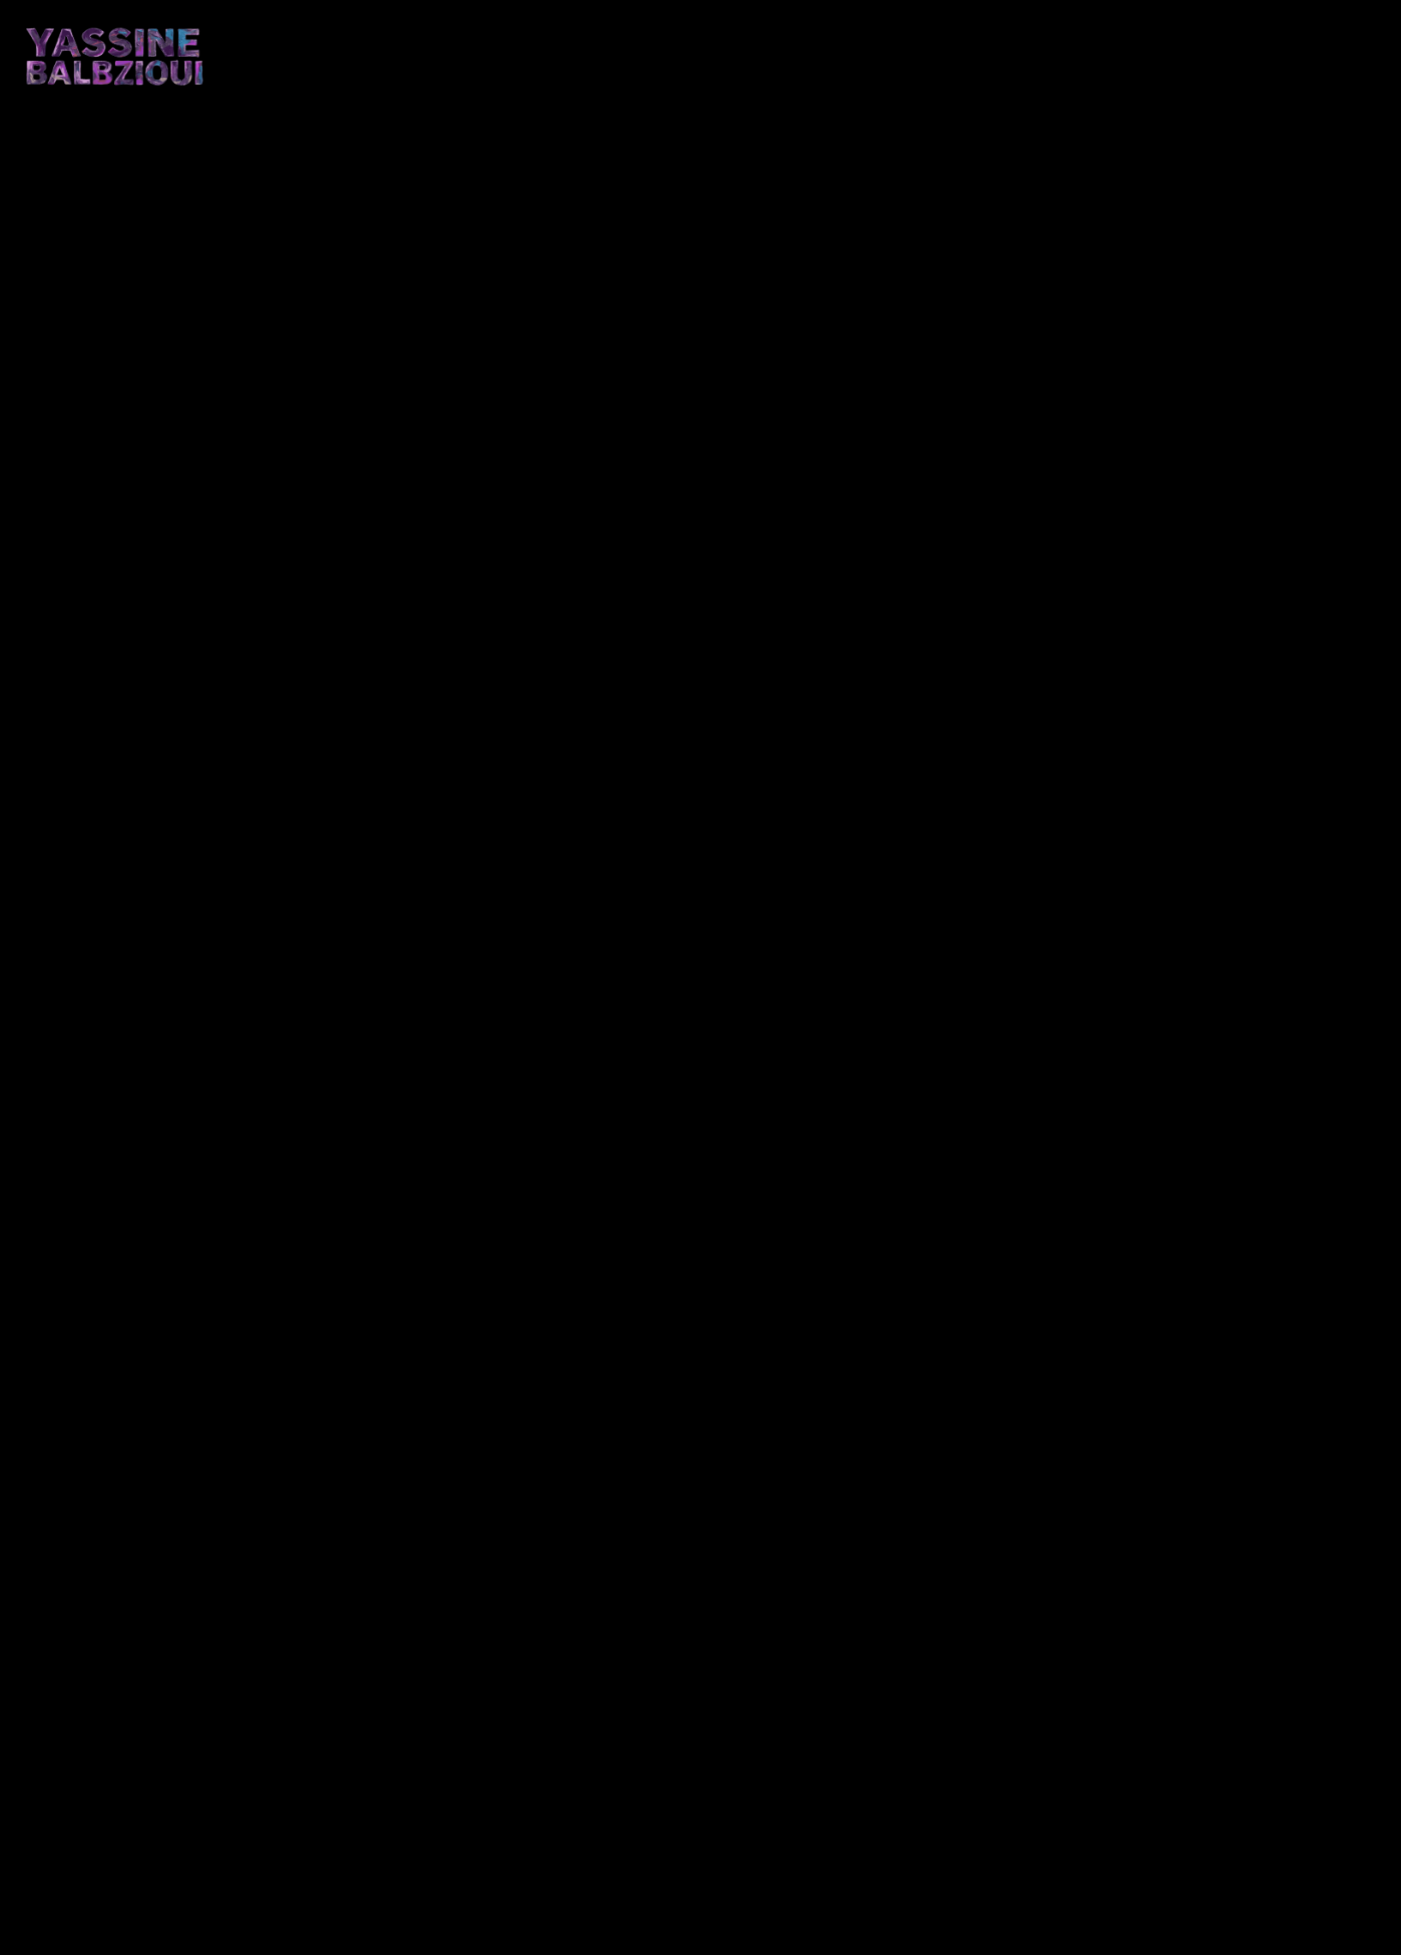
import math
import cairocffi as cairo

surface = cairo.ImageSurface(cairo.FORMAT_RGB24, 1401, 1955)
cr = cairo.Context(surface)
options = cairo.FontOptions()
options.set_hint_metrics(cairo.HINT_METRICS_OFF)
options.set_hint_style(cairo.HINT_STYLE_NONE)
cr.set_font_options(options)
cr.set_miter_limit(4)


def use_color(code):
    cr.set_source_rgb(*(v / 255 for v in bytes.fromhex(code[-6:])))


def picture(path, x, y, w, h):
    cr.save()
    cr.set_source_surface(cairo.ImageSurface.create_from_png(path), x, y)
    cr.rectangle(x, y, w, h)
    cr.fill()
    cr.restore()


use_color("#000000")
cr.paint()
picture("img1.png", 26, 27, 178, 59)
surface.write_to_png("result.png")
